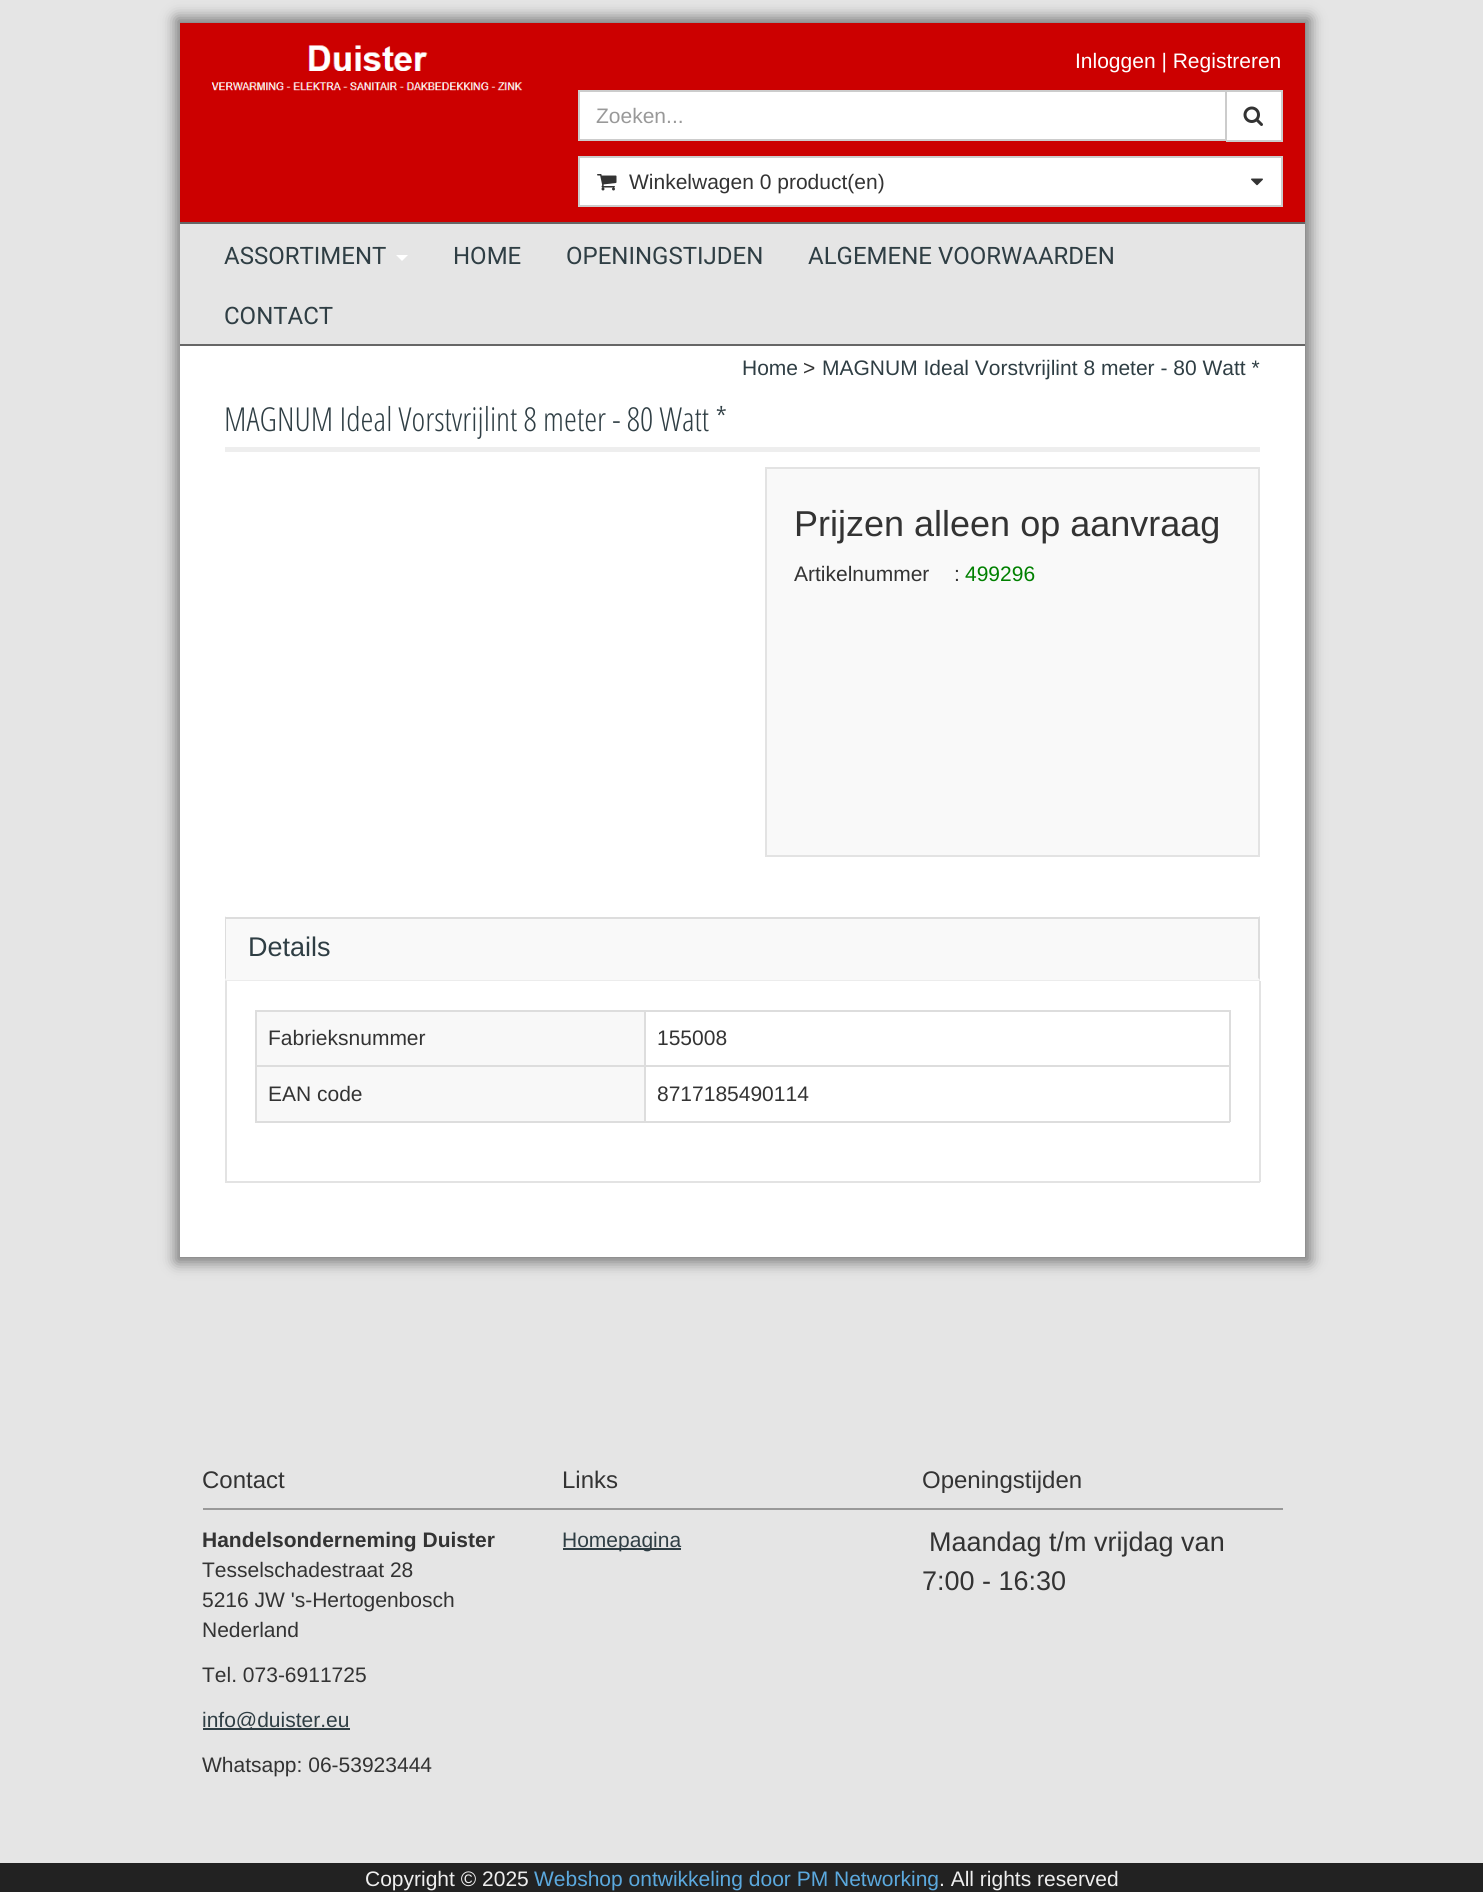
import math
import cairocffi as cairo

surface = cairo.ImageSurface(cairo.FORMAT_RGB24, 1483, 1892)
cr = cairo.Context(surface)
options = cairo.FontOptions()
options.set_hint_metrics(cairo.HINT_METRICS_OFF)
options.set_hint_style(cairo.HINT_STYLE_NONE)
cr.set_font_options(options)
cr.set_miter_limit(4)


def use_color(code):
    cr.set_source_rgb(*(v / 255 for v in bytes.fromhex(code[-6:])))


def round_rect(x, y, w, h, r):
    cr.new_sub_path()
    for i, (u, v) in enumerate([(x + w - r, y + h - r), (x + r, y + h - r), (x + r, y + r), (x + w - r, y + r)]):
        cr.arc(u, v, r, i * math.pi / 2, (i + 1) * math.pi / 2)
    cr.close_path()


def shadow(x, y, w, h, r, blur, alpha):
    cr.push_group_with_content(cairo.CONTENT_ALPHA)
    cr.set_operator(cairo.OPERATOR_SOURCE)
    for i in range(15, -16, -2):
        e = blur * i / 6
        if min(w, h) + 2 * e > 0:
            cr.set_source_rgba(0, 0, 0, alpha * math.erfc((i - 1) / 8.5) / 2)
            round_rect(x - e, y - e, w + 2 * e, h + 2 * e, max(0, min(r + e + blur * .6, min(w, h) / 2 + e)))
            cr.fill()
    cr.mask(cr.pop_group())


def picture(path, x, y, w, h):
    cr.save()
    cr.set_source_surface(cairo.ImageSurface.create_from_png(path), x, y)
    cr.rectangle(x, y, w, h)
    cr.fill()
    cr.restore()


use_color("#e5e5e5")
cr.paint()
use_color("#000000")
shadow(176, 18, 1134, 1244, 0, 7.5, 0.5)
use_color("#ffffff")
cr.rectangle(180, 346, 1125, 911)
cr.fill()
use_color("#cc0000")
cr.rectangle(180, 23, 1125, 199)
cr.fill()
picture("img1.png", 211, 45, 312, 46)
cr.select_font_face("Liberation Sans")
cr.set_font_size(21)
use_color("#ffffff")
cr.move_to(1075, 68)
cr.show_text("Inloggen | Registreren")
use_color("#cccccc")
cr.rectangle(1226, 90, 57, 2)
cr.fill()
cr.rectangle(1281, 90, 2, 51)
cr.fill()
cr.rectangle(1226, 140, 57, 2)
cr.fill()
use_color("#ffffff")
cr.rectangle(579, 91, 647, 49)
cr.fill_preserve()
use_color("#cccccc")
cr.stroke()
use_color("#999999")
cr.move_to(596, 123)
cr.show_text("Zoeken...")
use_color("#ffffff")
cr.rectangle(1227, 92, 54, 48)
cr.fill()
picture("img2.png", 1243, 106, 20, 20)
cr.rectangle(579, 157, 703, 49)
cr.fill_preserve()
use_color("#cccccc")
cr.stroke()
picture("img3.png", 597, 174, 20, 17)
use_color("#333333")
cr.move_to(629, 189)
cr.show_text("Winkelwagen 0 product(en)")
picture("img4.png", 1251, 178, 12, 8)
use_color("#e5e5e5")
cr.rectangle(180, 224, 1125, 120)
cr.fill()
use_color("#666666")
cr.rectangle(180, 222, 1125, 2)
cr.fill()
cr.rectangle(180, 344, 1125, 2)
cr.fill()
cr.select_font_face("Roboto")
cr.set_font_size(24)
use_color("#2f3e44")
cr.move_to(224, 264)
cr.show_text("ASSORTIMENT")
use_color("#ffffff")
cr.new_path()
cr.move_to(396, 255)
cr.line_to(408, 255)
cr.line_to(402, 261)
cr.close_path()
cr.fill()
use_color("#2f3e44")
cr.move_to(453, 264)
cr.show_text("HOME")
cr.move_to(566, 264)
cr.show_text("OPENINGSTIJDEN")
cr.move_to(808, 264)
cr.show_text("ALGEMENE VOORWAARDEN")
cr.move_to(224, 324)
cr.show_text("CONTACT")
cr.select_font_face("Liberation Sans")
cr.set_font_size(21)
cr.move_to(742, 375)
cr.show_text("Home")
use_color("#333333")
cr.move_to(803, 375)
cr.show_text(">")
use_color("#2f3e44")
cr.move_to(822, 375)
cr.show_text("MAGNUM Ideal Vorstvrijlint 8 meter - 80 Watt *")
use_color("#eeeeee")
cr.rectangle(225, 447, 1035, 5)
cr.fill()
cr.select_font_face("Open Sans Condensed Light")
cr.set_font_size(33)
use_color("#2f3e44")
cr.move_to(224, 431)
cr.show_text("MAGNUM Ideal Vorstvrijlint 8 meter - 80 Watt *")
use_color("#f9f9f9")
cr.rectangle(766, 468, 493, 388)
cr.fill_preserve()
use_color("#e3e3e3")
cr.stroke()
cr.select_font_face("Liberation Sans")
cr.set_font_size(36)
use_color("#333333")
cr.move_to(794, 536)
cr.show_text("Prijzen alleen op aanvraag")
cr.set_font_size(21)
cr.move_to(794, 581)
cr.show_text("Artikelnummer")
cr.move_to(954, 581)
cr.show_text(":")
use_color("#008000")
cr.move_to(965, 581)
cr.show_text("499296")
use_color("#ececec")
cr.rectangle(225, 980, 1035, 1)
cr.fill()
use_color("#f9f9f9")
cr.rectangle(225, 919, 1035, 61)
cr.fill()
use_color("#dddddd")
cr.rectangle(225, 917, 1035, 2)
cr.fill()
cr.new_path()
cr.move_to(1260, 916)
cr.line_to(1260, 980)
cr.line_to(1258, 978)
cr.line_to(1258, 918)
cr.close_path()
cr.fill()
cr.new_path()
cr.move_to(225, 980)
cr.line_to(225, 916)
cr.line_to(226, 918)
cr.line_to(226, 978)
cr.close_path()
cr.fill()
cr.set_font_size(27)
use_color("#2f3e44")
cr.move_to(248, 956)
cr.show_text("Details")
use_color("#e3e3e3")
cr.rectangle(1259, 981, 2, 201)
cr.fill()
cr.rectangle(225, 1181, 1035, 2)
cr.fill()
cr.rectangle(225, 981, 2, 201)
cr.fill()
use_color("#dddddd")
cr.rectangle(255, 1010, 975, 2)
cr.fill()
cr.rectangle(1229, 1010, 2, 112)
cr.fill()
cr.rectangle(255, 1121, 975, 2)
cr.fill()
cr.rectangle(255, 1010, 2, 112)
cr.fill()
use_color("#f8f8f8")
cr.rectangle(257, 1012, 387, 53)
cr.fill()
cr.set_font_size(21)
use_color("#333333")
cr.move_to(268, 1045)
cr.show_text("Fabrieksnummer")
use_color("#dddddd")
cr.rectangle(644, 1065, 586, 2)
cr.fill()
cr.rectangle(644, 1065, 2, 57)
cr.fill()
cr.rectangle(255, 1065, 390, 2)
cr.fill()
cr.rectangle(644, 1010, 2, 57)
cr.fill()
use_color("#333333")
cr.move_to(657, 1045)
cr.show_text("155008")
use_color("#f8f8f8")
cr.rectangle(257, 1067, 387, 54)
cr.fill()
use_color("#333333")
cr.move_to(268, 1101)
cr.show_text("EAN code")
cr.move_to(657, 1101)
cr.show_text("8717185490114")
use_color("#999999")
cr.rectangle(203, 1508, 1080, 2)
cr.fill()
cr.set_font_size(24)
use_color("#333333")
cr.move_to(202, 1488)
cr.show_text("Contact")
cr.select_font_face("Liberation Sans", cairo.FONT_SLANT_NORMAL, cairo.FONT_WEIGHT_BOLD)
cr.set_font_size(21)
cr.move_to(202, 1547)
cr.show_text("Handelsonderneming Duister")
cr.select_font_face("Liberation Sans")
cr.move_to(202, 1577)
cr.show_text("Tesselschadestraat 28")
cr.move_to(202, 1607)
cr.show_text("5216 JW 's-Hertogenbosch")
cr.move_to(202, 1637)
cr.show_text("Nederland")
cr.move_to(202, 1682)
cr.show_text("Tel. 073-6911725")
use_color("#2f3e44")
cr.rectangle(203, 1728, 147, 2)
cr.fill()
cr.move_to(202, 1727)
cr.show_text("info@duister.eu")
use_color("#333333")
cr.move_to(202, 1772)
cr.show_text("Whatsapp: 06-53923444")
cr.set_font_size(24)
cr.move_to(562, 1488)
cr.show_text("Links")
use_color("#2f3e44")
cr.rectangle(563, 1548, 118, 2)
cr.fill()
cr.set_font_size(21)
cr.move_to(562, 1547)
cr.show_text("Homepagina")
cr.set_font_size(24)
use_color("#333333")
cr.move_to(922, 1488)
cr.show_text("Openingstijden")
cr.set_font_size(27)
cr.move_to(929, 1551)
cr.show_text("Maandag t/m vrijdag van")
cr.move_to(922, 1590)
cr.show_text("7:00 - 16:30")
use_color("#222222")
cr.rectangle(0, 1863, 1483, 29)
cr.fill()
cr.set_font_size(21)
use_color("#eeeeee")
cr.move_to(365, 1886)
cr.show_text("Copyright © 2025")
use_color("#5ba9de")
cr.move_to(534, 1886)
cr.show_text("Webshop ontwikkeling door PM Networking")
use_color("#eeeeee")
cr.move_to(939, 1886)
cr.show_text(". All rights reserved")
surface.write_to_png("result.png")
